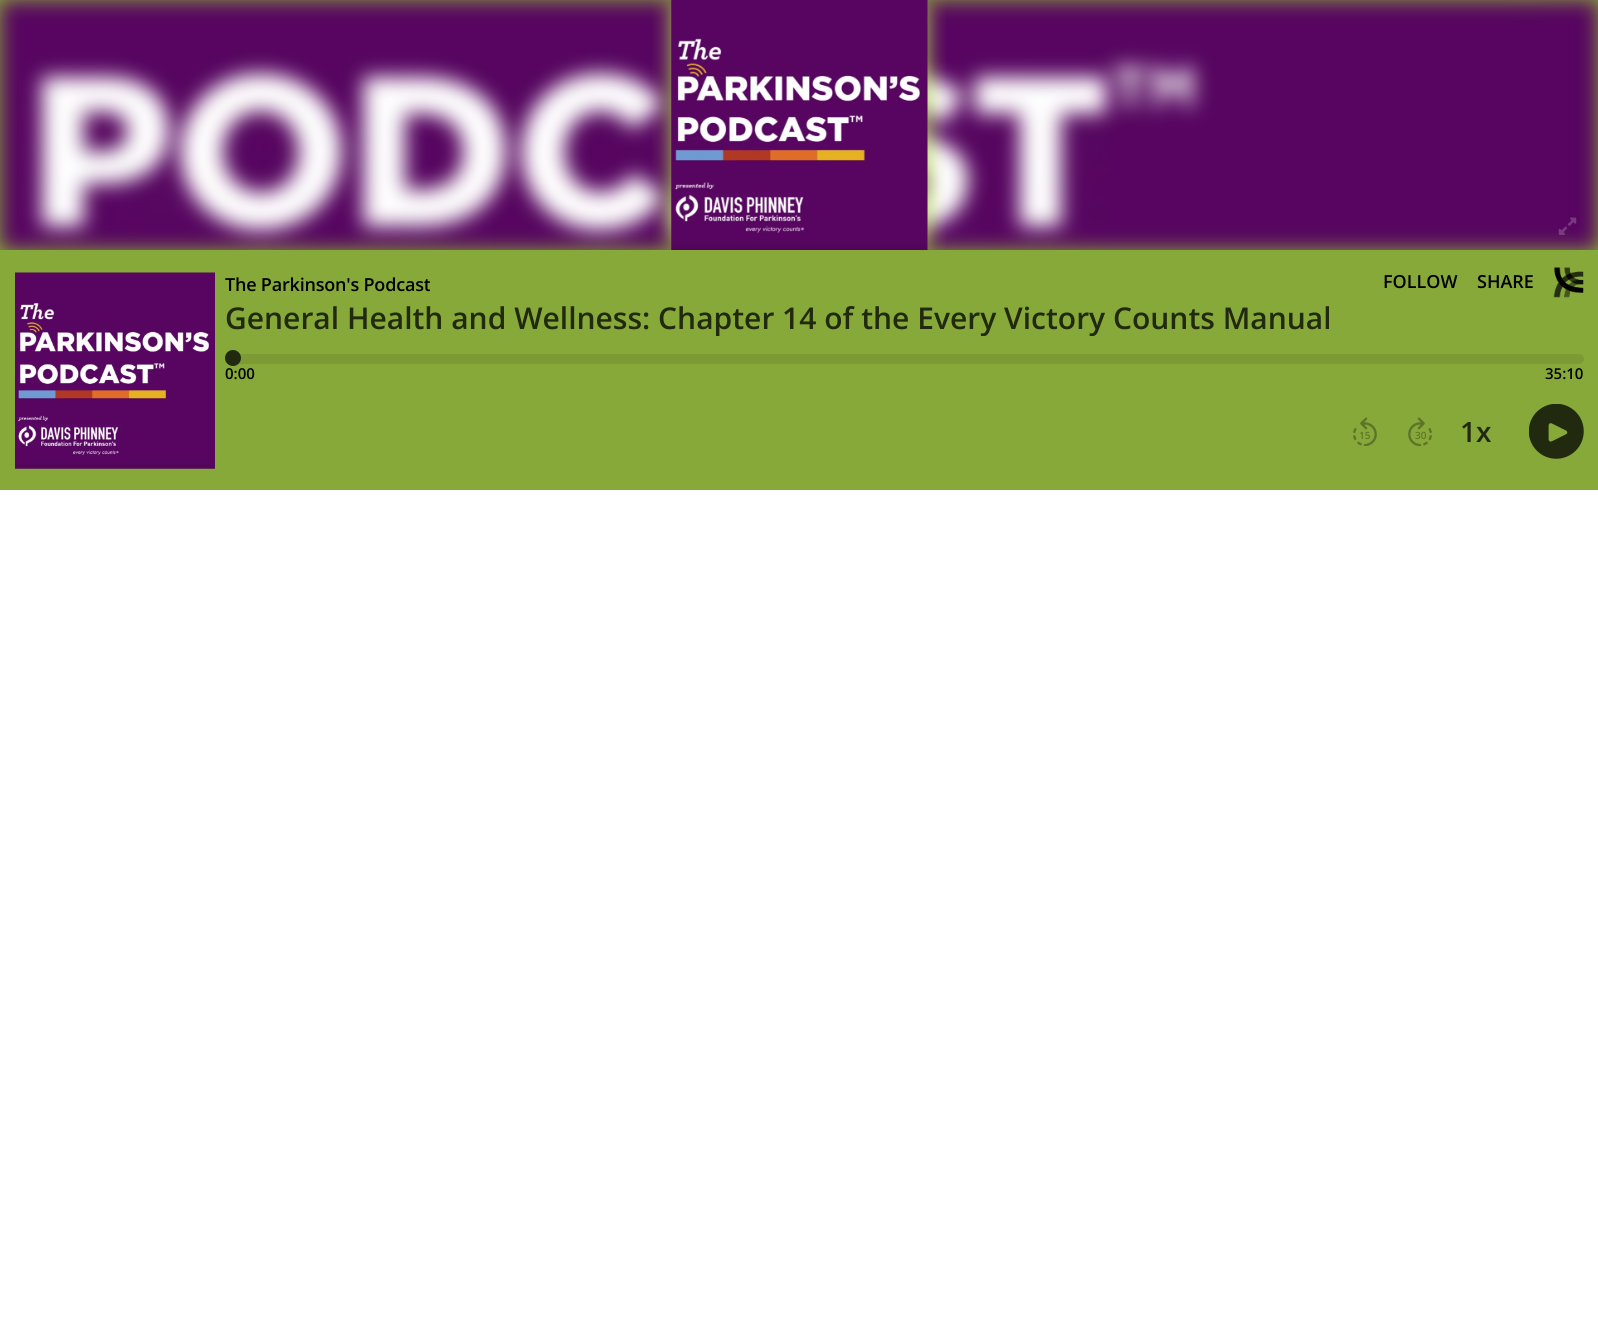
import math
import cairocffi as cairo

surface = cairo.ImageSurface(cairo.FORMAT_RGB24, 1598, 1334)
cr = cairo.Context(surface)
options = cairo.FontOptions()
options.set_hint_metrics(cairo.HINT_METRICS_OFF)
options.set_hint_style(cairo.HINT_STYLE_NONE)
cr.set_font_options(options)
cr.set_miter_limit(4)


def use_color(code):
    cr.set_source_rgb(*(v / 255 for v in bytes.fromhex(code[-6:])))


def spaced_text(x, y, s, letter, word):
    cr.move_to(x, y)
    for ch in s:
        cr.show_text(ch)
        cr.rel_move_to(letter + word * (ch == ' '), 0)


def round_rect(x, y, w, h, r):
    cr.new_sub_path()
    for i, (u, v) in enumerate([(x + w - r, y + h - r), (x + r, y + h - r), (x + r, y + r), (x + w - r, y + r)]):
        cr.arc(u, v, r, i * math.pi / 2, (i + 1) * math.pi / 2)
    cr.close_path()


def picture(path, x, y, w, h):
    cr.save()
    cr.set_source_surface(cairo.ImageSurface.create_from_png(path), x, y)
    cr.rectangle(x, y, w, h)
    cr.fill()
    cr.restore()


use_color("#ffffff")
cr.paint()
use_color("#87a93a")
cr.rectangle(0, 0, 1598, 490)
cr.fill()
picture("img2.png", 0, 0, 1598, 250)
picture("img1.png", 1558, 217, 19, 18)
picture("img3.png", 652, 0, 294, 250)
picture("img4.png", 15, 272, 200, 197)
cr.save()
cr.rectangle(225, 274, 205, 21)
cr.clip()
cr.select_font_face("Open Sans SemiBold")
cr.set_font_size(18)
use_color("#000000")
spaced_text(225, 291, "The Parkinson's Podcast", -0.2, 0)
cr.restore()
cr.select_font_face("Open Sans SemiBold")
cr.set_font_size(18)
use_color("#000000")
cr.move_to(1383, 288)
cr.show_text("FOLLOW")
cr.move_to(1477, 288)
cr.show_text("SHARE")
picture("img5.png", 1553, 267, 31, 31)
cr.save()
cr.rectangle(225, 300, 1106, 36)
cr.clip()
cr.set_font_size(30)
use_color("#21290e")
cr.move_to(225, 329)
cr.show_text("General Health and Wellness: Chapter 14 of the Every Victory Counts Manual")
cr.restore()
use_color("#7d9b35")
round_rect(225, 354, 1359, 10, 5)
cr.fill()
use_color("#21290e")
cr.arc(233, 358, 8, 0, 2 * math.pi)
cr.fill()
cr.set_font_size(15)
use_color("#000000")
cr.move_to(225, 379)
cr.show_text("0:00")
cr.move_to(1545, 379)
cr.show_text("35:10")
picture("img6.png", 1353, 417, 24, 29)
cr.set_font_size(10)
use_color("#5e7628")
cr.move_to(1359, 439)
cr.show_text("15")
picture("img7.png", 1408, 417, 24, 29)
cr.move_to(1415, 439)
cr.show_text("30")
cr.set_font_size(28)
use_color("#21290e")
cr.move_to(1460, 442)
cr.show_text("1x")
picture("img8.png", 1529, 404, 55, 55)
surface.write_to_png("result.png")
